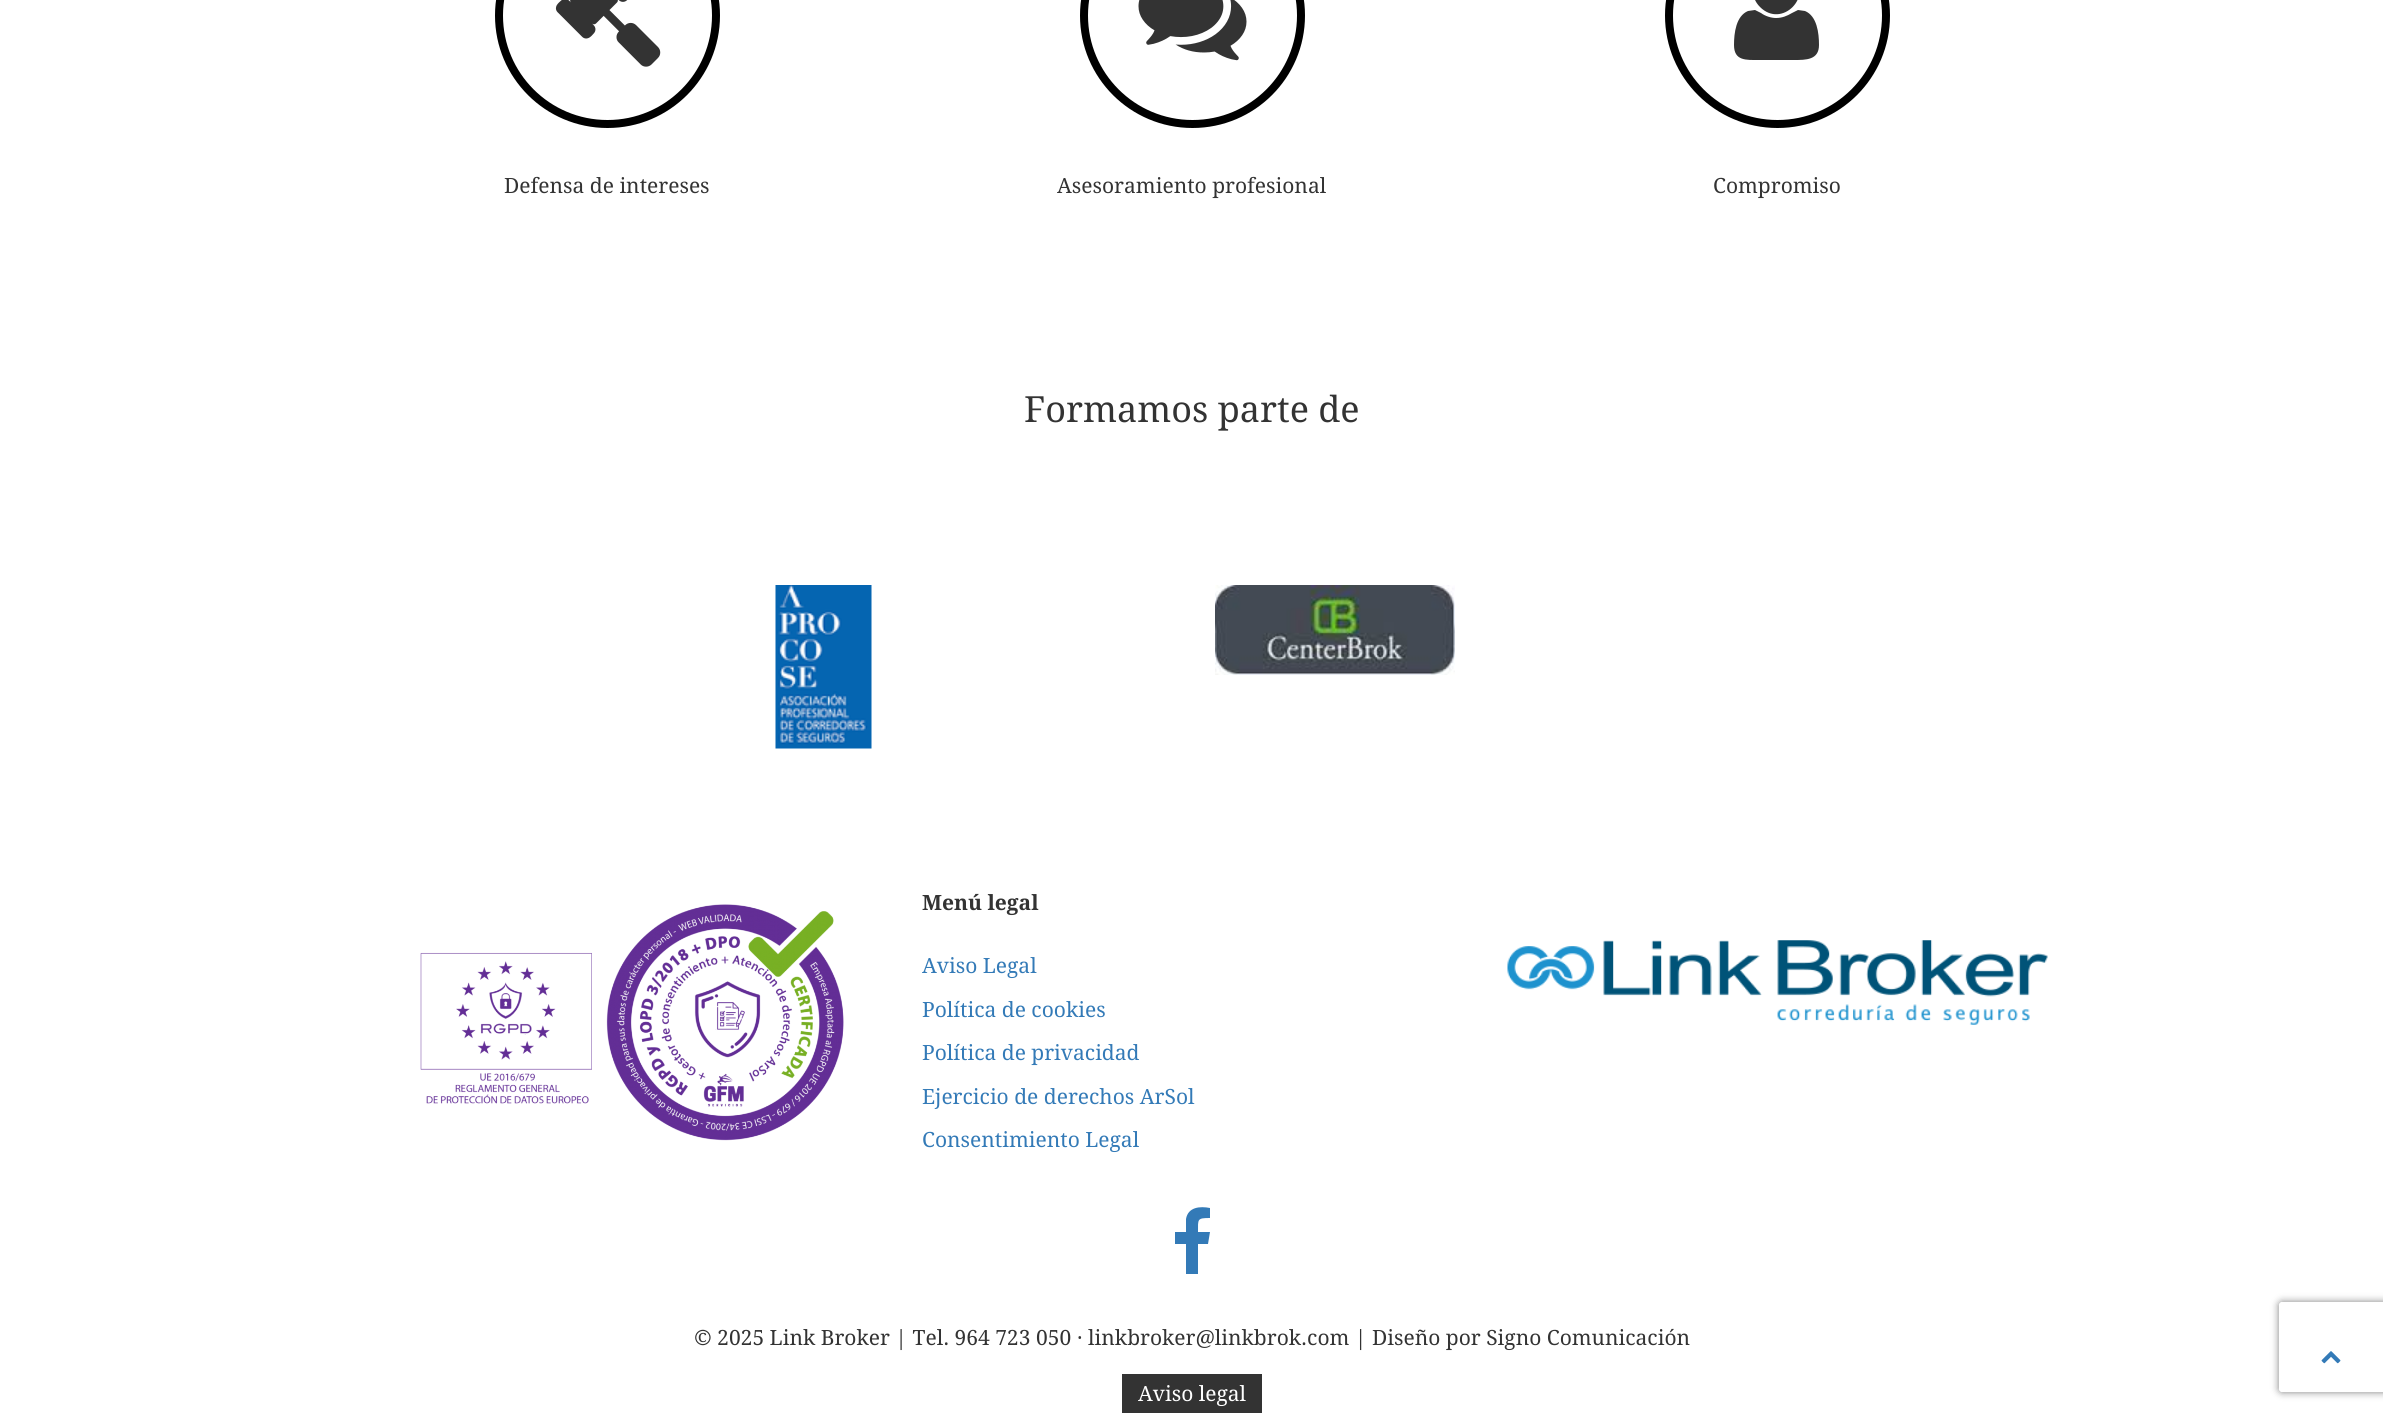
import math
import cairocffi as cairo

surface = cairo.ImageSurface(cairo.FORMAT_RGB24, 2383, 1413)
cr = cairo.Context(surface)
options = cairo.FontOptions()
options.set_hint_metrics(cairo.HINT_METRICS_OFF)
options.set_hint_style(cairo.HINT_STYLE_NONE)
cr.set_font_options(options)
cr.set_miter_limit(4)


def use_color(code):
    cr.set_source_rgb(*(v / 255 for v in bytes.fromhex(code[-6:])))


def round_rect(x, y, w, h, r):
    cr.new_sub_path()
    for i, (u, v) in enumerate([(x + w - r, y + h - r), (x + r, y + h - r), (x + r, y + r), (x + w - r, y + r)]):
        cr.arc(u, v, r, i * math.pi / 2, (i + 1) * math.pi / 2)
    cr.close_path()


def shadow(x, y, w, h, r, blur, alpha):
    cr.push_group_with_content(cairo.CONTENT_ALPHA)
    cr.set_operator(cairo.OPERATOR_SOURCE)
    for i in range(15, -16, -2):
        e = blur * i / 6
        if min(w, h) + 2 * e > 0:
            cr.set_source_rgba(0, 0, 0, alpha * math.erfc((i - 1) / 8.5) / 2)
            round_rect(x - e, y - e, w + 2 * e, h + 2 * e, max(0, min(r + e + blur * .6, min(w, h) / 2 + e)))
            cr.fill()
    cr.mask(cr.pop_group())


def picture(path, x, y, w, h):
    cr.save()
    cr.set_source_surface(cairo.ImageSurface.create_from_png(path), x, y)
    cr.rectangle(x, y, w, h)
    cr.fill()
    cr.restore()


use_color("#ffffff")
cr.paint()
cr.arc(607.5, 15.5, 108.5, 0, 2 * math.pi)
use_color("#000000")
cr.set_line_width(8)
cr.stroke()
picture("img1.png", 555, 0, 106, 67)
cr.select_font_face("Droid Serif")
cr.set_font_size(21)
use_color("#333333")
cr.move_to(504, 193)
cr.show_text("Defensa de intereses")
cr.new_path()
cr.arc(1192.5, 15.5, 108.5, 0, 2 * math.pi)
use_color("#000000")
cr.stroke()
picture("img2.png", 1138, 0, 109, 61)
use_color("#333333")
cr.move_to(1057, 193)
cr.show_text("Asesoramiento profesional")
cr.new_path()
cr.arc(1777.5, 15.5, 108.5, 0, 2 * math.pi)
use_color("#000000")
cr.stroke()
use_color("#333333")
cr.new_path()
cr.move_to(1819, 45)
cr.curve_to(1819, 60, 1806, 60, 1794, 60)
cr.line_to(1759, 60)
cr.curve_to(1746, 60, 1734, 61, 1734, 45)
cr.curve_to(1734, 33, 1736, 16, 1748, 11)
cr.line_to(1755, 10)
cr.line_to(1761, 13)
cr.curve_to(1765, 16, 1771, 18, 1776, 18)
cr.curve_to(1782, 18, 1787, 16, 1792, 13)
cr.line_to(1798, 10)
cr.line_to(1805, 11)
cr.curve_to(1817, 16, 1819, 33, 1819, 45)
cr.close_path()
cr.move_to(1793, -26)
cr.curve_to(1814, -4, 1782, 29, 1760, 7)
cr.curve_to(1739, -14, 1771, -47, 1793, -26)
cr.close_path()
cr.fill()
cr.move_to(1713, 193)
cr.show_text("Compromiso")
cr.set_font_size(36)
cr.move_to(1024, 422)
cr.show_text("Formamos parte de")
picture("img3.png", 775, 585, 97, 164)
picture("img4.png", 1215, 585, 240, 90)
picture("img5.png", 420, 904, 424, 237)
cr.select_font_face("Droid Serif", cairo.FONT_SLANT_NORMAL, cairo.FONT_WEIGHT_BOLD)
cr.set_font_size(21)
cr.move_to(922, 910)
cr.show_text("Menú legal")
cr.select_font_face("Droid Serif")
use_color("#337ab7")
cr.move_to(922, 973)
cr.show_text("Aviso Legal")
cr.move_to(922, 1017)
cr.show_text("Política de cookies")
cr.move_to(922, 1060)
cr.show_text("Política de privacidad")
cr.move_to(922, 1104)
cr.show_text("Ejercicio de derechos ArSol")
cr.move_to(922, 1147)
cr.show_text("Consentimiento Legal")
picture("img6.png", 1507, 940, 541, 85)
cr.new_path()
cr.move_to(1210, 1208)
cr.line_to(1210, 1218)
cr.curve_to(1197, 1218, 1198, 1219, 1198, 1232)
cr.line_to(1210, 1232)
cr.line_to(1208, 1244)
cr.line_to(1198, 1244)
cr.line_to(1198, 1274)
cr.line_to(1186, 1274)
cr.line_to(1186, 1244)
cr.line_to(1175, 1244)
cr.line_to(1175, 1232)
cr.line_to(1186, 1232)
cr.line_to(1186, 1219)
cr.curve_to(1188, 1207, 1200, 1206, 1210, 1208)
cr.close_path()
cr.fill()
use_color("#333333")
cr.move_to(694, 1345)
cr.show_text("© 2025 Link Broker | Tel. 964 723 050 · linkbroker@linkbrok.com | Diseño por Signo Comunicación")
cr.save()
cr.set_fill_rule(cairo.FILL_RULE_EVEN_ODD)
cr.new_path()
cr.move_to(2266, 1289)
cr.line_to(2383, 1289)
cr.line_to(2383, 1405)
cr.line_to(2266, 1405)
cr.close_path()
cr.move_to(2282, 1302)
cr.line_to(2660, 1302)
cr.curve_to(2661.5, 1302, 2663, 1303.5, 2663, 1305)
cr.line_to(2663, 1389)
cr.curve_to(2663, 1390.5, 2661.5, 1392, 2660, 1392)
cr.line_to(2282, 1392)
cr.curve_to(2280.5, 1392, 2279, 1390.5, 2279, 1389)
cr.line_to(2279, 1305)
cr.curve_to(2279, 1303.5, 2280.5, 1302, 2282, 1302)
cr.close_path()
cr.clip()
use_color("#808080")
shadow(2279, 1302, 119, 90, 3, 4, 1)
cr.restore()
picture("img7.png", 2321, 1351, 20, 13)
cr.rectangle(1122, 1374, 140, 39)
cr.fill()
use_color("#ffffff")
cr.move_to(1138, 1401)
cr.show_text("Aviso legal")
surface.write_to_png("result.png")
